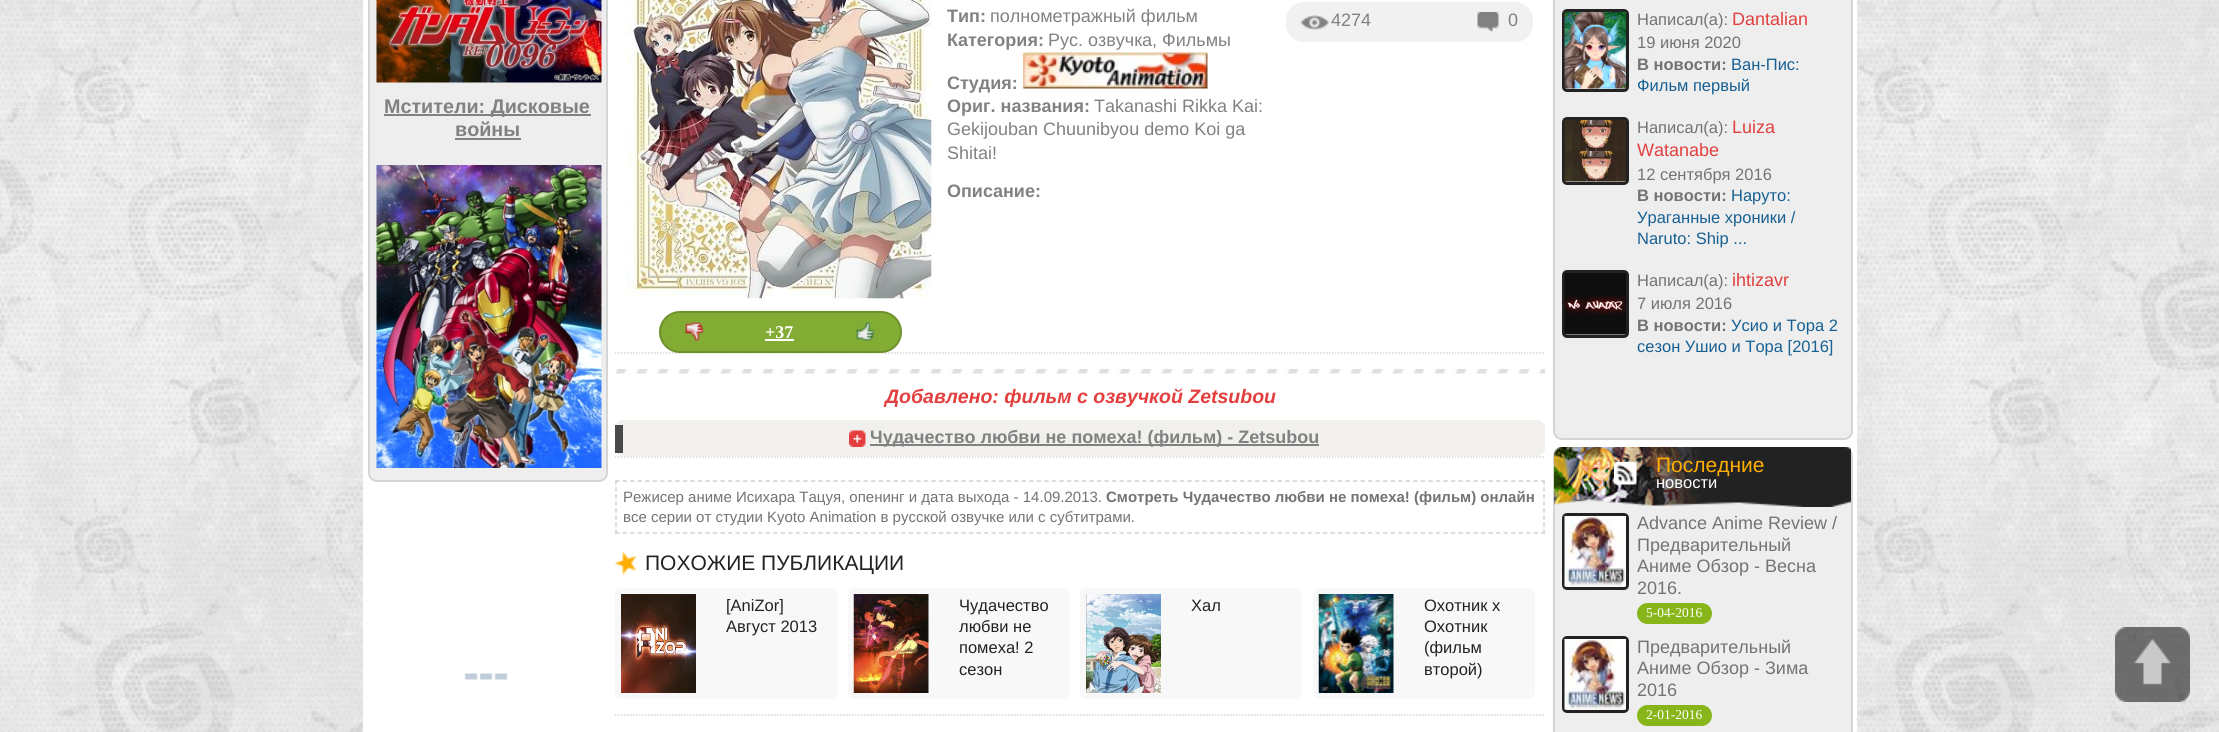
import math
import cairocffi as cairo

surface = cairo.ImageSurface(cairo.FORMAT_RGB24, 2219, 732)
cr = cairo.Context(surface)
options = cairo.FontOptions()
options.set_hint_metrics(cairo.HINT_METRICS_OFF)
options.set_hint_style(cairo.HINT_STYLE_NONE)
cr.set_font_options(options)
cr.set_miter_limit(4)


def use_color(code):
    cr.set_source_rgb(*(v / 255 for v in bytes.fromhex(code[-6:])))


def round_rect(x, y, w, h, r):
    cr.new_sub_path()
    for i, (u, v) in enumerate([(x + w - r, y + h - r), (x + r, y + h - r), (x + r, y + r), (x + w - r, y + r)]):
        cr.arc(u, v, r, i * math.pi / 2, (i + 1) * math.pi / 2)
    cr.close_path()


def picture(path, x, y, w, h):
    cr.save()
    cr.set_source_surface(cairo.ImageSurface.create_from_png(path), x, y)
    cr.rectangle(x, y, w, h)
    cr.fill()
    cr.restore()


use_color("#ffffff")
cr.paint()
picture("img1.png", 0, 0, 2219, 732)
use_color("#ffffff")
cr.rectangle(363, 0, 1494, 732)
cr.fill()
use_color("#eeeeee")
round_rect(369, -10, 238, 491, 8)
cr.fill_preserve()
use_color("#d5d5d5")
cr.stroke()
picture("img2.png", 376, 0, 226, 83)
use_color("#818181")
cr.rectangle(384, 114, 207, 2)
cr.fill()
cr.select_font_face("Liberation Sans", cairo.FONT_SLANT_NORMAL, cairo.FONT_WEIGHT_BOLD)
cr.set_font_size(19.75)
cr.move_to(384, 113)
cr.show_text("Мстители: Дисковые")
cr.move_to(455, 136)
cr.show_text("войны")
cr.rectangle(455, 138, 66, 2)
cr.fill()
picture("img3.png", 376, 165, 226, 303)
picture("img4.png", 464, 673, 44, 7)
cr.new_path()
cr.move_to(615, 353)
cr.line_to(1545, 353)
use_color("#d5d5d5")
cr.set_line_width(1.5)
cr.set_dash([1.5, 1.5])
cr.stroke()
cr.save()
cr.rectangle(947, 0, 586, 165)
cr.clip()
cr.set_font_size(18)
use_color("#818181")
cr.move_to(947, 22)
cr.show_text("Тип:")
cr.restore()
cr.select_font_face("Liberation Sans")
cr.set_font_size(18)
use_color("#818181")
cr.move_to(990, 22)
cr.show_text("полнометражный фильм")
cr.select_font_face("Liberation Sans", cairo.FONT_SLANT_NORMAL, cairo.FONT_WEIGHT_BOLD)
cr.move_to(947, 46)
cr.show_text("Категория:")
cr.select_font_face("Liberation Sans")
cr.move_to(1048, 46)
cr.show_text("Рус. озвучка, Фильмы")
cr.select_font_face("Liberation Sans", cairo.FONT_SLANT_NORMAL, cairo.FONT_WEIGHT_BOLD)
cr.move_to(947, 89)
cr.show_text("Студия:")
picture("img5.png", 1023, 52, 185, 37)
cr.move_to(947, 112)
cr.show_text("Ориг. названия:")
cr.select_font_face("Liberation Sans")
cr.move_to(1094, 112)
cr.show_text("Takanashi Rikka Kai:")
cr.move_to(947, 135)
cr.show_text("Gekijouban Chuunibyou demo Koi ga")
cr.move_to(947, 159)
cr.show_text("Shitai!")
use_color("#f1f1f1")
round_rect(1286, 2, 247, 40, 18)
cr.fill()
picture("img6.png", 1300, 15, 29, 15)
use_color("#818181")
cr.move_to(1331, 26)
cr.show_text("4274")
picture("img7.png", 1477, 12, 22, 20)
cr.move_to(1508, 26)
cr.show_text("0")
cr.select_font_face("Liberation Sans", cairo.FONT_SLANT_NORMAL, cairo.FONT_WEIGHT_BOLD)
cr.move_to(947, 197)
cr.show_text("Описание:")
picture("img8.png", 627, 0, 305, 299)
use_color("#82ac34")
round_rect(660, 312, 241, 40, 20)
cr.fill_preserve()
use_color("#6e912c")
cr.set_line_width(2)
cr.set_dash([])
cr.stroke()
picture("img9.png", 685, 322, 19, 19)
cr.select_font_face("Liberation Serif", cairo.FONT_SLANT_NORMAL, cairo.FONT_WEIGHT_BOLD)
use_color("#ffffff")
cr.move_to(765, 338)
cr.show_text("+37")
cr.rectangle(765, 339, 29, 2)
cr.fill()
picture("img10.png", 856, 322, 19, 19)
picture("img11.png", 615, 369, 930, 5)
cr.select_font_face("Liberation Sans", cairo.FONT_SLANT_ITALIC, cairo.FONT_WEIGHT_BOLD)
cr.set_font_size(19.5)
use_color("#e33f3f")
cr.move_to(885, 403)
cr.show_text("Добавлено: фильм с озвучкой Zetsubou")
cr.new_path()
cr.move_to(615, 457)
cr.line_to(1545, 457)
use_color("#d5d5d5")
cr.set_line_width(1.5)
cr.set_dash([1.5, 1.5])
cr.stroke()
use_color("#f1f0ed")
round_rect(615, 420, 930, 36, 8)
cr.fill()
use_color("#4a4949")
cr.rectangle(615, 425, 8, 28)
cr.fill()
picture("img12.png", 849, 430, 17, 17)
use_color("#818181")
cr.rectangle(870, 444, 449, 2)
cr.fill()
cr.select_font_face("Liberation Sans", cairo.FONT_SLANT_NORMAL, cairo.FONT_WEIGHT_BOLD)
cr.set_font_size(18)
cr.move_to(870, 443)
cr.show_text("Чудачество любви не помеха! (фильм) - Zetsubou")
cr.new_path()
cr.move_to(615, 481)
cr.line_to(1545, 481)
use_color("#d5d2d2")
cr.set_dash([4.5, 3.03])
cr.stroke()
cr.new_path()
cr.move_to(1544, 480)
cr.line_to(1544, 534)
cr.set_dash([4.5, 2.56])
cr.stroke()
cr.new_path()
cr.move_to(615, 533)
cr.line_to(1545, 533)
cr.set_dash([4.5, 3.03])
cr.stroke()
cr.new_path()
cr.move_to(616, 480)
cr.line_to(616, 534)
cr.set_dash([4.5, 2.56])
cr.stroke()
cr.select_font_face("Liberation Sans")
cr.set_font_size(15)
use_color("#737373")
cr.move_to(623, 502)
cr.show_text("Режисер аниме Исихара Тацуя, опенинг и дата выхода - 14.09.2013.")
cr.select_font_face("Liberation Sans", cairo.FONT_SLANT_NORMAL, cairo.FONT_WEIGHT_BOLD)
cr.move_to(1106, 502)
cr.show_text("Смотреть Чудачество любви не помеха! (фильм) онлайн")
cr.select_font_face("Liberation Sans")
cr.move_to(623, 522)
cr.show_text("все серии от студии Kyoto Animation в русской озвучке или с субтитрами.")
cr.new_path()
cr.move_to(615, 715)
cr.line_to(1545, 715)
use_color("#d5d5d5")
cr.set_dash([1.5, 1.5])
cr.stroke()
picture("img13.png", 615, 552, 21, 23)
cr.set_font_size(21)
use_color("#222222")
cr.move_to(645, 570)
cr.show_text("ПОХОЖИЕ ПУБЛИКАЦИИ")
use_color("#f8f8f8")
round_rect(615, 588, 222, 111, 6)
cr.fill()
picture("img14.png", 621, 594, 75, 99)
cr.set_font_size(16.5)
use_color("#222222")
cr.move_to(726, 611)
cr.show_text("[AniZor]")
cr.move_to(726, 632)
cr.show_text("Август 2013")
use_color("#f8f8f8")
round_rect(848, 588, 222, 111, 6)
cr.fill()
picture("img15.png", 853, 594, 76, 99)
use_color("#222222")
cr.move_to(959, 611)
cr.show_text("Чудачество")
cr.move_to(959, 632)
cr.show_text("любви не")
cr.move_to(959, 653)
cr.show_text("помеха! 2")
cr.move_to(959, 675)
cr.show_text("сезон")
use_color("#f8f8f8")
round_rect(1080, 588, 222, 111, 6)
cr.fill()
picture("img16.png", 1086, 594, 75, 99)
use_color("#222222")
cr.move_to(1191, 611)
cr.show_text("Хал")
use_color("#f8f8f8")
round_rect(1313, 588, 222, 111, 6)
cr.fill()
picture("img17.png", 1318, 594, 76, 99)
use_color("#222222")
cr.move_to(1424, 611)
cr.show_text("Охотник х")
cr.move_to(1424, 632)
cr.show_text("Охотник")
cr.move_to(1424, 653)
cr.show_text("(фильм")
cr.move_to(1424, 675)
cr.show_text("второй)")
use_color("#eeeeee")
round_rect(1554, -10, 298, 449, 8)
cr.fill_preserve()
use_color("#d5d5d5")
cr.set_line_width(2)
cr.set_dash([])
cr.stroke()
round_rect(1563.5, 10.5, 64, 80, 3.5)
use_color("#222222")
cr.set_line_width(3)
cr.stroke()
picture("img18.png", 1564, 12, 62, 77)
use_color("#737373")
cr.move_to(1637, 25)
cr.show_text("Написал(а):")
cr.set_font_size(18)
use_color("#e33f3f")
cr.move_to(1732, 25)
cr.show_text("Dantalian")
cr.set_font_size(16.5)
use_color("#737373")
cr.move_to(1637, 48)
cr.show_text("19 июня 2020")
cr.select_font_face("Liberation Sans", cairo.FONT_SLANT_NORMAL, cairo.FONT_WEIGHT_BOLD)
cr.move_to(1637, 70)
cr.show_text("В новости:")
cr.select_font_face("Liberation Sans")
use_color("#176093")
cr.move_to(1731, 70)
cr.show_text("Ван-Пис:")
cr.move_to(1637, 91)
cr.show_text("Фильм первый")
round_rect(1563.5, 118.5, 64, 65, 3.5)
use_color("#222222")
cr.stroke()
picture("img19.png", 1564, 120, 62, 62)
use_color("#737373")
cr.move_to(1637, 133)
cr.show_text("Написал(а):")
cr.set_font_size(18)
use_color("#e33f3f")
cr.move_to(1732, 133)
cr.show_text("Luiza")
cr.move_to(1637, 156)
cr.show_text("Watanabe")
cr.set_font_size(16.5)
use_color("#737373")
cr.move_to(1637, 180)
cr.show_text("12 сентября 2016")
cr.select_font_face("Liberation Sans", cairo.FONT_SLANT_NORMAL, cairo.FONT_WEIGHT_BOLD)
cr.move_to(1637, 201)
cr.show_text("В новости:")
cr.select_font_face("Liberation Sans")
use_color("#176093")
cr.move_to(1731, 201)
cr.show_text("Наруто:")
cr.move_to(1637, 223)
cr.show_text("Ураганные хроники /")
cr.move_to(1637, 244)
cr.show_text("Naruto: Ship ...")
round_rect(1563.5, 271.5, 64, 65, 3.5)
use_color("#222222")
cr.stroke()
picture("img20.png", 1564, 273, 62, 62)
use_color("#737373")
cr.move_to(1637, 286)
cr.show_text("Написал(а):")
cr.set_font_size(18)
use_color("#e33f3f")
cr.move_to(1732, 286)
cr.show_text("ihtizavr")
cr.set_font_size(16.5)
use_color("#737373")
cr.move_to(1637, 309)
cr.show_text("7 июля 2016")
cr.select_font_face("Liberation Sans", cairo.FONT_SLANT_NORMAL, cairo.FONT_WEIGHT_BOLD)
cr.move_to(1637, 331)
cr.show_text("В новости:")
cr.select_font_face("Liberation Sans")
use_color("#176093")
cr.move_to(1731, 331)
cr.show_text("Усио и Тора 2")
cr.move_to(1637, 352)
cr.show_text("сезон Ушио и Тора [2016]")
use_color("#eeeeee")
round_rect(1554, 448, 298, 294, 8)
cr.fill_preserve()
use_color("#d5d5d5")
cr.set_line_width(2)
cr.stroke()
picture("img21.png", 1554, 447, 297, 60)
picture("img22.png", 1614, 462, 23, 23)
cr.set_font_size(21)
use_color("#ffae01")
cr.move_to(1656, 472)
cr.show_text("Последние")
cr.set_font_size(16.5)
use_color("#ffffff")
cr.move_to(1656, 488)
cr.show_text("новости")
round_rect(1563.5, 514.5, 64, 74, 3.5)
use_color("#222222")
cr.set_line_width(3)
cr.stroke()
picture("img23.png", 1564, 516, 62, 71)
cr.set_font_size(18)
use_color("#737373")
cr.move_to(1637, 529)
cr.show_text("Advance Anime Review /")
cr.move_to(1637, 551)
cr.show_text("Предварительный")
cr.move_to(1637, 572)
cr.show_text("Аниме Обзор - Весна")
cr.move_to(1637, 594)
cr.show_text("2016.")
use_color("#88b61a")
round_rect(1637, 603, 75, 21, 10.5)
cr.fill()
cr.select_font_face("Liberation Serif")
cr.set_font_size(13.5)
use_color("#ffffff")
cr.move_to(1646, 617)
cr.show_text("5-04-2016")
round_rect(1563.5, 637.5, 64, 74, 3.5)
use_color("#222222")
cr.stroke()
picture("img23.png", 1564, 639, 62, 71)
cr.select_font_face("Liberation Sans")
cr.set_font_size(18)
use_color("#737373")
cr.move_to(1637, 653)
cr.show_text("Предварительный")
cr.move_to(1637, 674)
cr.show_text("Аниме Обзор - Зима")
cr.move_to(1637, 696)
cr.show_text("2016")
use_color("#88b61a")
round_rect(1637, 705, 75, 21, 10.5)
cr.fill()
cr.select_font_face("Liberation Serif")
cr.set_font_size(13.5)
use_color("#ffffff")
cr.move_to(1646, 719)
cr.show_text("2-01-2016")
picture("img24.png", 2115, 627, 75, 75)
surface.write_to_png("result.png")
